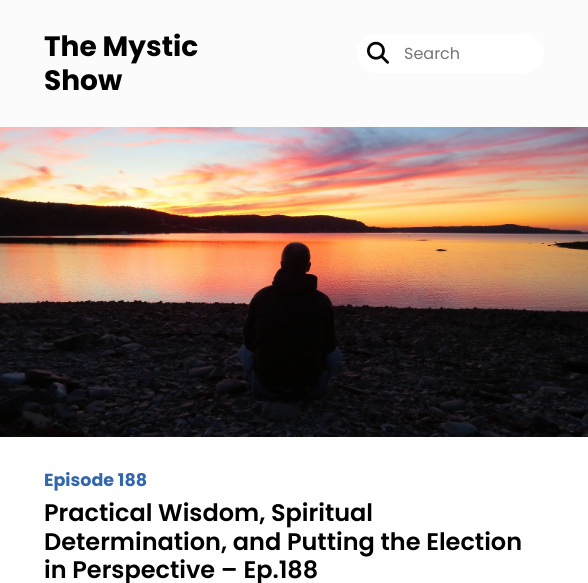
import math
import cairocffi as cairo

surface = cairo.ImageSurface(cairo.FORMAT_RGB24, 588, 583)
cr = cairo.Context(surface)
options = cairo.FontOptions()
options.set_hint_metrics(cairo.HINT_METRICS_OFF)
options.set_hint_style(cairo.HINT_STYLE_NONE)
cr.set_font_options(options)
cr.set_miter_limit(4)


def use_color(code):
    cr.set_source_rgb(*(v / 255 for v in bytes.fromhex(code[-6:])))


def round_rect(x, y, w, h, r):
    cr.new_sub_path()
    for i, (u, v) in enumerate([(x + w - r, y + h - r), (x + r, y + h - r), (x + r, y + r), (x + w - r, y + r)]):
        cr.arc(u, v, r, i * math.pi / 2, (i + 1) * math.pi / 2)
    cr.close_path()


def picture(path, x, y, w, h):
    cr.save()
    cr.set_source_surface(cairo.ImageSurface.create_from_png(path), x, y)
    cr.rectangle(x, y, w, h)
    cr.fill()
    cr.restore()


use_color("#fbfbfb")
cr.paint()
cr.select_font_face("Poppins", cairo.FONT_SLANT_NORMAL, cairo.FONT_WEIGHT_BOLD)
cr.set_font_size(28)
use_color("#000000")
cr.move_to(44, 56)
cr.show_text("The Mystic")
cr.move_to(44, 90)
cr.show_text("Show")
use_color("#ffffff")
round_rect(357, 34, 187, 39, 19.5)
cr.fill()
picture("img1.png", 367, 41, 22, 23)
cr.save()
round_rect(404, 37, 140, 34, 17)
cr.clip()
cr.select_font_face("Poppins")
cr.set_font_size(16)
use_color("#757575")
cr.move_to(404, 59)
cr.show_text("Search")
cr.restore()
picture("img2.png", 0, 127, 588, 310)
cr.rectangle(0, 437, 588, 146)
cr.fill()
cr.set_font_size(17.5)
use_color("#3266af")
cr.move_to(44, 486)
cr.show_text("Episode 188")
cr.select_font_face("Poppins SemiBold")
cr.set_font_size(24)
use_color("#000000")
cr.move_to(44, 521)
cr.show_text("Practical Wisdom, Spiritual")
cr.move_to(44, 550)
cr.show_text("Determination, and Putting the Election")
cr.move_to(44, 578)
cr.show_text("in Perspective – Ep.188")
surface.write_to_png("result.png")
